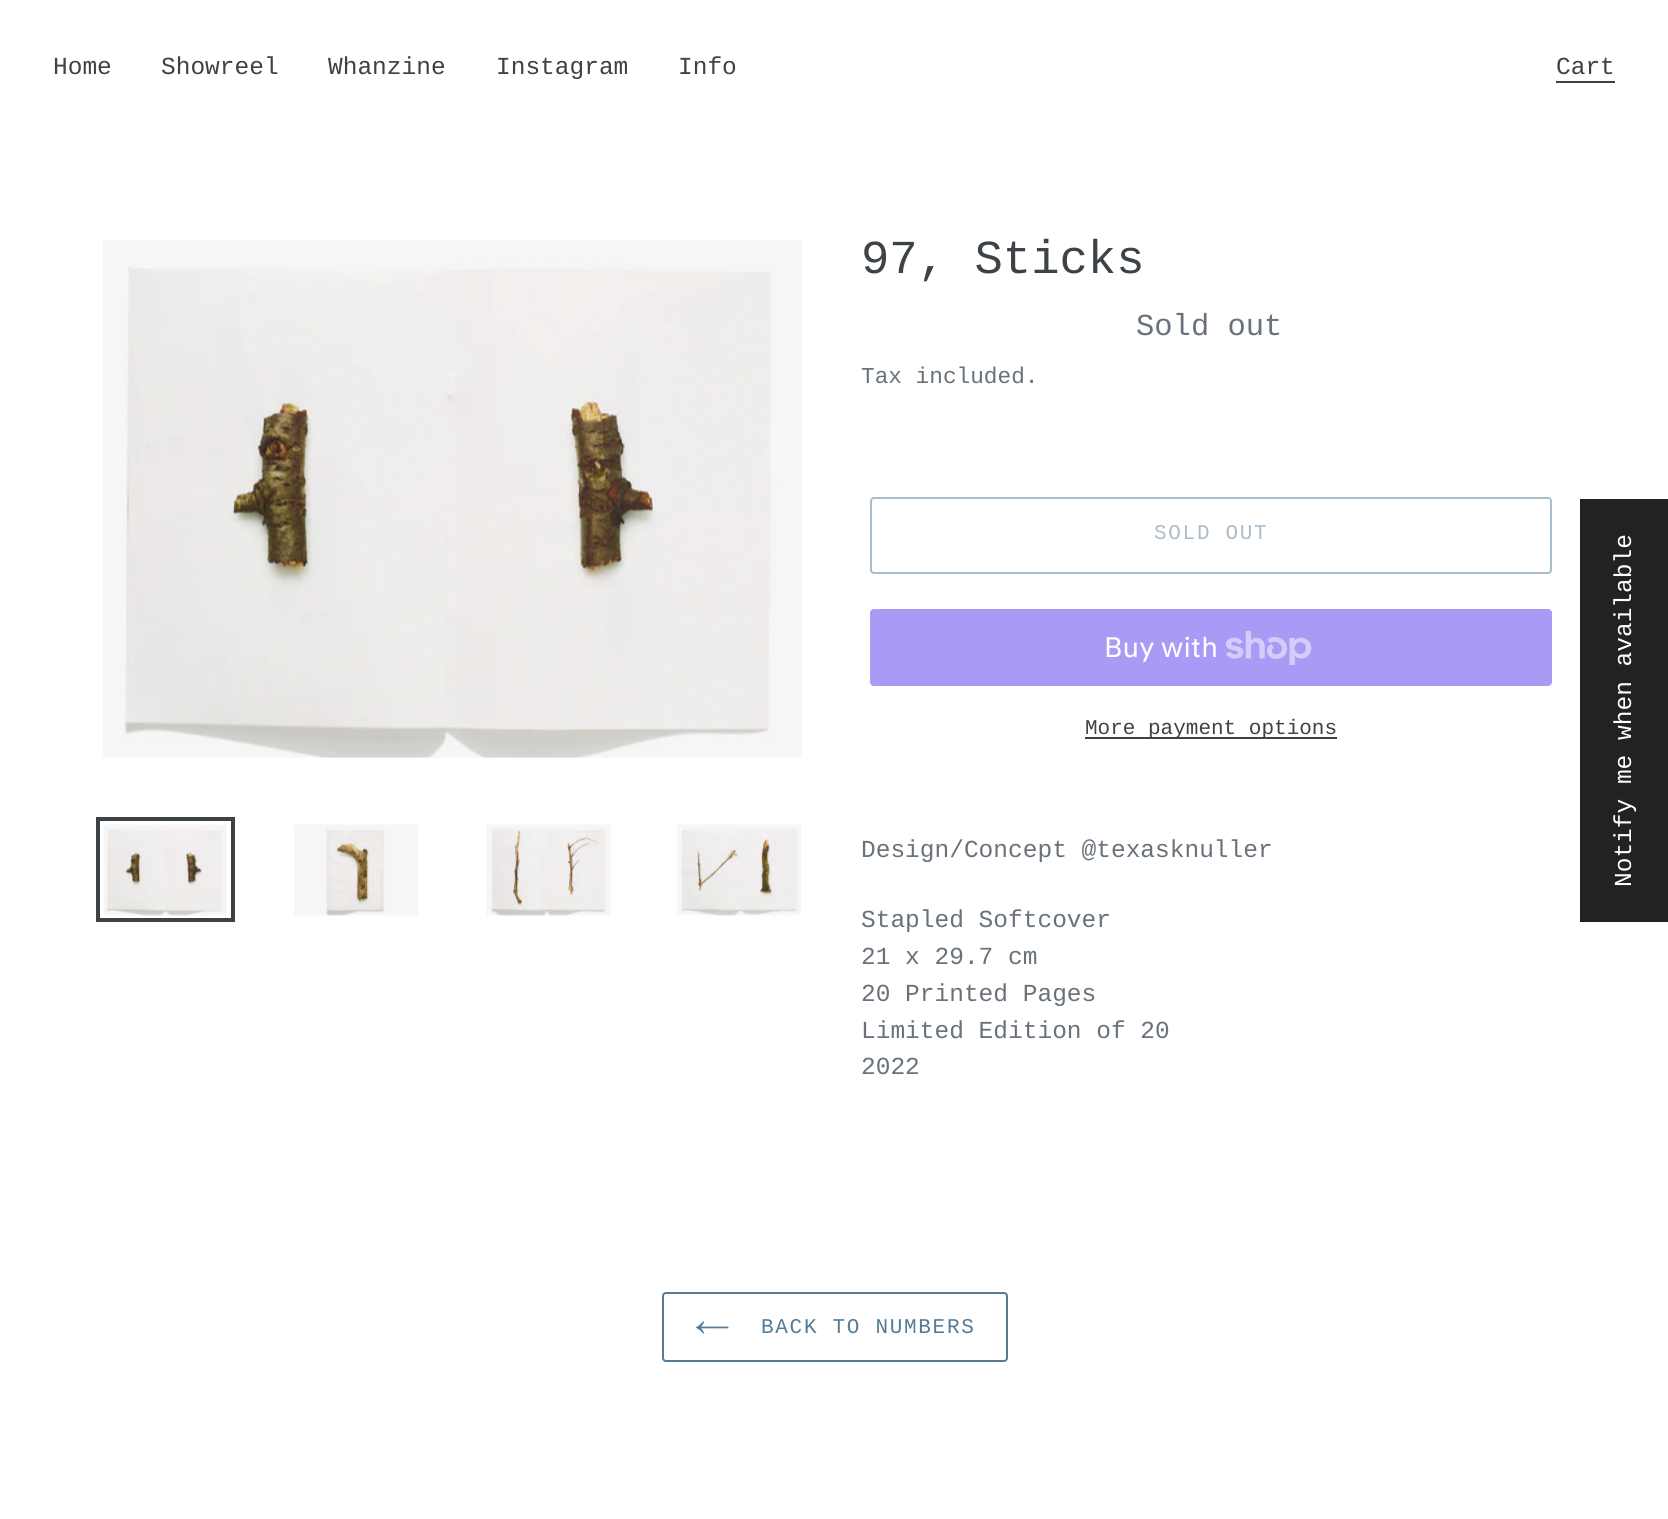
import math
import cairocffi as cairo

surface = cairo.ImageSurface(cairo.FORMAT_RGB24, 1668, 1519)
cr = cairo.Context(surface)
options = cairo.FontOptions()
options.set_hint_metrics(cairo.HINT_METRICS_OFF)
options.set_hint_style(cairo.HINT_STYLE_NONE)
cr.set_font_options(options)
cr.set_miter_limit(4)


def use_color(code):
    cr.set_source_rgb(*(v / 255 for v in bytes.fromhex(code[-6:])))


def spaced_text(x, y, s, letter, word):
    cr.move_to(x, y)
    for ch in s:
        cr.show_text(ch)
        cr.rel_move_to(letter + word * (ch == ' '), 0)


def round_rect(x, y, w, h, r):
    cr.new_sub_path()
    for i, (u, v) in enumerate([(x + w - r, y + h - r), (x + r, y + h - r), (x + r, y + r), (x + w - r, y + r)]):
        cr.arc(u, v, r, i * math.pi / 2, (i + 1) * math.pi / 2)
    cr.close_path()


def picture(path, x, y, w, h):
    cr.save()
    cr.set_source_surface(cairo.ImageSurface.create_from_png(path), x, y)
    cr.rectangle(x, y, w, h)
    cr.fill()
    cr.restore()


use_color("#ffffff")
cr.paint()
cr.select_font_face("Liberation Mono")
cr.set_font_size(24.5)
use_color("#3d4246")
cr.move_to(53, 74)
cr.show_text("Home")
cr.move_to(161, 74)
cr.show_text("Showreel")
cr.move_to(328, 74)
cr.show_text("Whanzine")
cr.move_to(496, 74)
cr.show_text("Instagram")
cr.move_to(678, 74)
cr.show_text("Info")
cr.move_to(1556, 74)
cr.show_text("Cart")
cr.rectangle(1556, 81, 59, 2)
cr.fill()
picture("img1.png", 103, 240, 699, 518)
cr.rectangle(98, 819, 135, 101)
cr.set_line_width(4)
cr.stroke()
picture("img2.png", 103, 824, 124, 92)
picture("img3.png", 294, 824, 124, 92)
picture("img4.png", 486, 824, 125, 92)
picture("img5.png", 677, 824, 124, 92)
cr.set_font_size(47.25)
cr.move_to(861, 273)
cr.show_text("97, Sticks")
cr.set_font_size(30.5)
use_color("#69727b")
cr.move_to(1136, 335)
cr.show_text("Sold out")
cr.set_font_size(22.75)
cr.move_to(861, 383)
cr.show_text("Tax included.")
round_rect(871, 498, 680, 75, 3)
use_color("#aabdcb")
cr.set_line_width(2)
cr.stroke()
cr.set_font_size(21)
spaced_text(1154, 539, "SOLD OUT", 1.7, 0)
use_color("#aa99f5")
round_rect(870, 609, 682, 77, 4)
cr.fill()
cr.select_font_face("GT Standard")
cr.set_font_size(28)
use_color("#ffffff")
cr.move_to(1104, 657)
cr.show_text("Buy with")
picture("img6.png", 1226, 630, 86, 35)
use_color("#3d4246")
cr.rectangle(1085, 737, 252, 2)
cr.fill()
cr.select_font_face("Liberation Mono")
cr.set_font_size(21)
cr.move_to(1085, 734)
cr.show_text("More payment options")
cr.set_font_size(24.5)
use_color("#69727b")
cr.move_to(861, 857)
cr.show_text("Design/Concept @texasknuller")
cr.move_to(861, 927)
cr.show_text("Stapled Softcover")
cr.move_to(861, 964)
cr.show_text("21 x 29.7 cm")
cr.move_to(861, 1001)
cr.show_text("20 Printed Pages")
cr.move_to(861, 1038)
cr.show_text("Limited Edition of 20")
cr.move_to(861, 1074)
cr.show_text("2022")
round_rect(663, 1293, 344, 68, 3)
use_color("#557b97")
cr.stroke()
picture("img7.png", 696, 1321, 33, 13)
cr.set_font_size(21)
spaced_text(761, 1333, "BACK TO NUMBERS", 1.7, 0)
use_color("#202223")
cr.rectangle(1580, 499, 88, 423)
cr.fill()
cr.set_font_size(24.5)
use_color("#ffffff")
cr.save()
cr.translate(1631, 887)
cr.rotate(-90 * math.pi / 180)
cr.move_to(0, 0)
cr.show_text("Notify me when available")
cr.restore()
surface.write_to_png("result.png")
